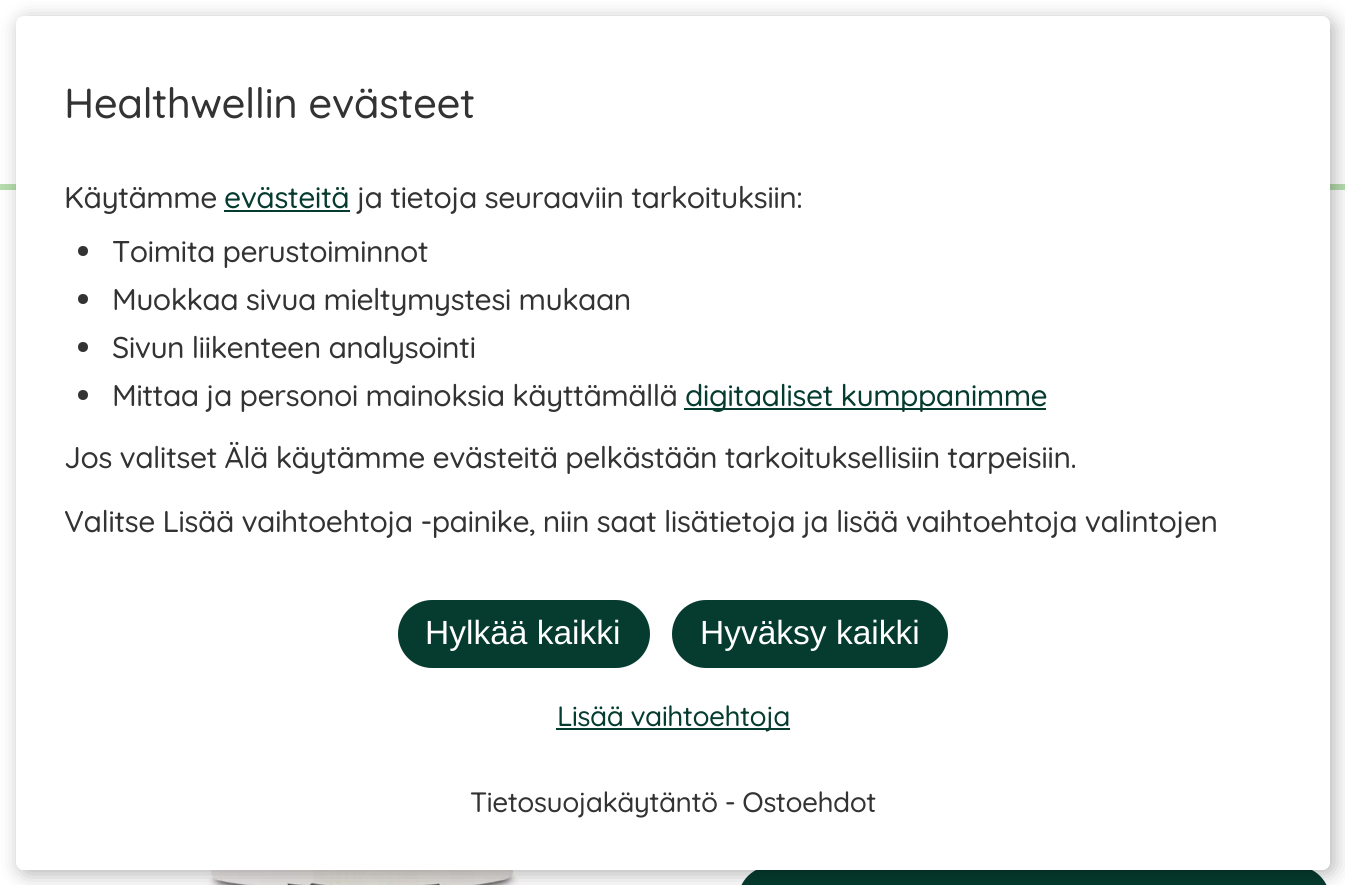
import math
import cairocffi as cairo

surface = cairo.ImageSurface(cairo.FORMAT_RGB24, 1345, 885)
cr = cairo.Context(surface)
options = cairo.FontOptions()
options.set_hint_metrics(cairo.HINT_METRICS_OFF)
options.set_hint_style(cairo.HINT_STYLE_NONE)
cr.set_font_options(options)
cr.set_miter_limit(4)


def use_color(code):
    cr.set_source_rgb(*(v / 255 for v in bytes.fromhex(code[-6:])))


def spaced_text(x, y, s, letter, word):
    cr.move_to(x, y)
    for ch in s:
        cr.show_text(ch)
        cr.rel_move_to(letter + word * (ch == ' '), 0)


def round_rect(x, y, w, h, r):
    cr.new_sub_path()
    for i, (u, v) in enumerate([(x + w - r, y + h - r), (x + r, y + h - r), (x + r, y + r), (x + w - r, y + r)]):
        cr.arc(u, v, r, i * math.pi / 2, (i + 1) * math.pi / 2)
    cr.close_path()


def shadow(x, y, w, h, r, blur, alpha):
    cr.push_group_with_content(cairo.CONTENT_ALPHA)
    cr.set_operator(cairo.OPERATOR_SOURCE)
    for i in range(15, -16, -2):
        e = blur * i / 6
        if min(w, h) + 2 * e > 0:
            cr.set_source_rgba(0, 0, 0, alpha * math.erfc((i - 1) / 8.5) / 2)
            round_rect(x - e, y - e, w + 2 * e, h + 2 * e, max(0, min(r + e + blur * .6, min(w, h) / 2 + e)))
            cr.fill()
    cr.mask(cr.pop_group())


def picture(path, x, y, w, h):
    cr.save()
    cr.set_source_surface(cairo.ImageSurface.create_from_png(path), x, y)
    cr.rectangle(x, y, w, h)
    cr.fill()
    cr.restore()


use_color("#b6ddae")
cr.paint()
use_color("#ffffff")
cr.rectangle(0, 0, 1345, 184)
cr.fill()
cr.rectangle(0, 190, 1345, 695)
cr.fill()
picture("img1.png", 205, 870, 316, 15)
use_color("#053c2f")
round_rect(738, 866, 592, 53, 34)
cr.fill()
use_color("#000000")
shadow(20, 20, 1314, 854, 8, 10, 0.3)
use_color("#ffffff")
round_rect(16, 16, 1314, 854, 8)
cr.fill()
cr.select_font_face("Quicksand Medium")
cr.set_font_size(42)
use_color("#333333")
spaced_text(64, 118, "Healthwellin evästeet", -0.55, 0)
cr.set_font_size(30)
spaced_text(64, 208, "Käytämme", -0.55, 0)
use_color("#053c2f")
spaced_text(224, 208, "evästeitä", -0.55, 0)
cr.rectangle(224, 210, 126, 2)
cr.fill()
use_color("#333333")
spaced_text(357, 208, "ja tietoja seuraaviin tarkoituksiin:", -0.55, 0)
cr.new_path()
cr.arc(83, 251, 5, 0, 2 * math.pi)
cr.fill()
spaced_text(112, 262, "Toimita perustoiminnot", -0.55, 0)
cr.new_path()
cr.arc(83, 299, 5, 0, 2 * math.pi)
cr.fill()
spaced_text(112, 310, "Muokkaa sivua mieltymystesi mukaan", -0.55, 0)
cr.new_path()
cr.arc(83, 347, 5, 0, 2 * math.pi)
cr.fill()
spaced_text(112, 358, "Sivun liikenteen analysointi", -0.55, 0)
cr.new_path()
cr.arc(83, 395, 5, 0, 2 * math.pi)
cr.fill()
spaced_text(112, 406, "Mittaa ja personoi mainoksia käyttämällä", -0.55, 0)
use_color("#053c2f")
cr.rectangle(684, 408, 362, 2)
cr.fill()
spaced_text(685, 406, "digitaaliset kumppanimme", -0.55, 0)
use_color("#333333")
spaced_text(64, 468, "Jos valitset Älä käytämme evästeitä pelkästään tarkoituksellisiin tarpeisiin.", -0.55, 0)
spaced_text(64, 532, "Valitse Lisää vaihtoehtoja -painike, niin saat lisätietoja ja lisää vaihtoehtoja valintojen", -0.55, 0)
use_color("#ffffff")
round_rect(16, 546, 1314, 324, 8)
cr.fill()
use_color("#053c2f")
round_rect(398, 600, 252, 68, 34)
cr.fill()
cr.select_font_face("Liberation Sans")
cr.set_font_size(33.5)
use_color("#ffffff")
cr.move_to(425, 644)
cr.show_text("Hylkää kaikki")
use_color("#053c2f")
round_rect(672, 600, 276, 68, 34)
cr.fill()
use_color("#ffffff")
cr.move_to(700, 644)
cr.show_text("Hyväksy kaikki")
use_color("#053c2f")
cr.rectangle(556, 728, 234, 2)
cr.fill()
cr.select_font_face("Quicksand Medium")
cr.set_font_size(28)
spaced_text(557, 726, "Lisää vaihtoehtoja", -0.55, 0)
use_color("#333333")
spaced_text(470, 812, "Tietosuojakäytäntö - Ostoehdot", -0.55, 0)
surface.write_to_png("result.png")
